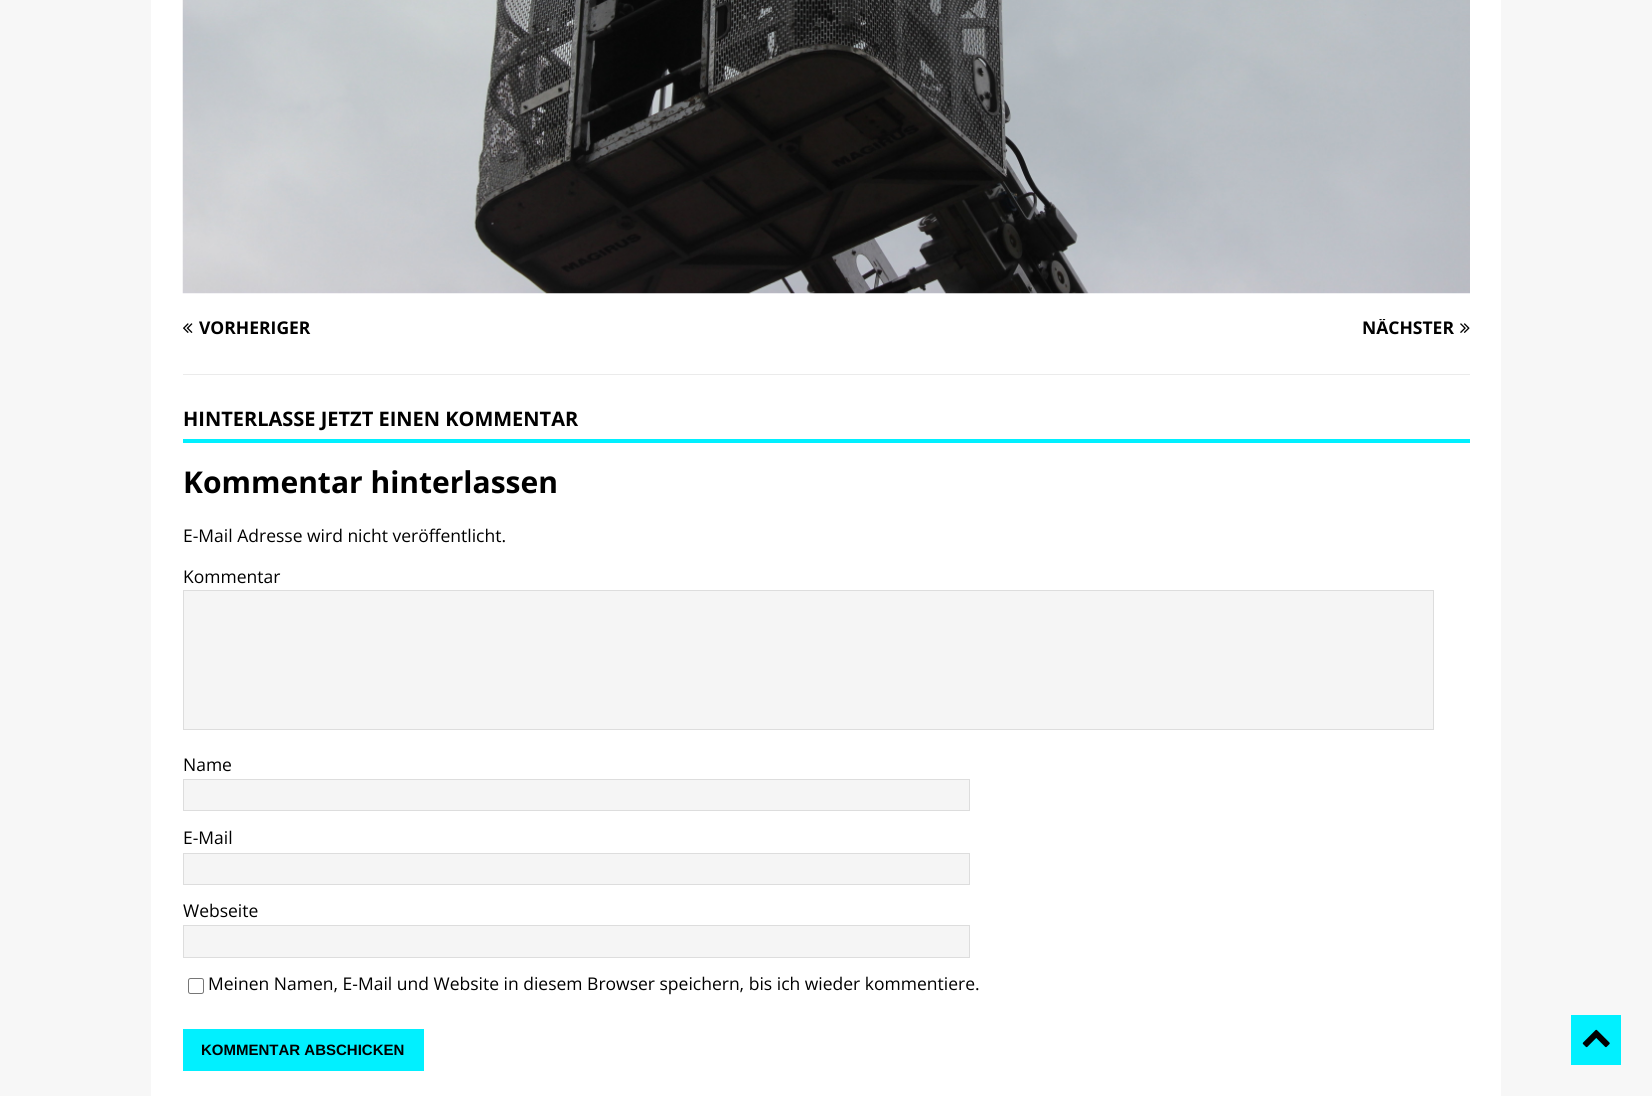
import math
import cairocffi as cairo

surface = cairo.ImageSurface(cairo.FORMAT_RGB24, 1652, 1096)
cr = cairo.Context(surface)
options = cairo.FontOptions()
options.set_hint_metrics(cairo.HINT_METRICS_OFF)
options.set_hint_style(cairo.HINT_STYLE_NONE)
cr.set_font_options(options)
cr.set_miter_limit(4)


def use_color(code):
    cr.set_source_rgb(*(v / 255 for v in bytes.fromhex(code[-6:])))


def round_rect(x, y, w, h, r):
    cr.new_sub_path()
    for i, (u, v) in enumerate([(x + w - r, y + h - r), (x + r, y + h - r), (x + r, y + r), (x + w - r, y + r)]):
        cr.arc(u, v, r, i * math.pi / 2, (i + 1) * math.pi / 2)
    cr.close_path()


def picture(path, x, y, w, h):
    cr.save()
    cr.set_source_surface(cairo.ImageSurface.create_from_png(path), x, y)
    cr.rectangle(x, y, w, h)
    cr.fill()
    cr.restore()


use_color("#f7f7f7")
cr.paint()
use_color("#ffffff")
cr.rectangle(151, 0, 1350, 1096)
cr.fill()
picture("img1.png", 182, 0, 1288, 294)
use_color("#ebebeb")
cr.rectangle(183, 374, 1287, 1)
cr.fill()
picture("img2.png", 183, 323, 10, 10)
cr.select_font_face("Open Sans", cairo.FONT_SLANT_NORMAL, cairo.FONT_WEIGHT_BOLD)
cr.set_font_size(17.5)
use_color("#000000")
cr.move_to(199, 334)
cr.show_text("VORHERIGER")
cr.save()
cr.rectangle(843, 319, 627, 17)
cr.clip()
cr.move_to(1362, 334)
cr.show_text("NÄCHSTER")
cr.restore()
picture("img3.png", 1460, 323, 10, 10)
use_color("#01f0ff")
cr.rectangle(183, 439, 1287, 4)
cr.fill()
cr.set_font_size(20)
use_color("#000000")
cr.move_to(183, 426)
cr.show_text("HINTERLASSE JETZT EINEN KOMMENTAR")
cr.set_font_size(30)
cr.move_to(183, 493)
cr.show_text("Kommentar hinterlassen")
cr.select_font_face("Open Sans")
cr.set_font_size(17.5)
cr.move_to(183, 542)
cr.show_text("E-Mail Adresse wird nicht veröffentlicht.")
cr.move_to(183, 583)
cr.show_text("Kommentar")
use_color("#f5f5f5")
cr.rectangle(183.5, 590.5, 1250, 139)
cr.fill_preserve()
use_color("#dddddd")
cr.set_line_width(1)
cr.stroke()
use_color("#000000")
cr.move_to(183, 771)
cr.show_text("Name")
use_color("#f5f5f5")
cr.rectangle(183.5, 779.5, 786, 31)
cr.fill_preserve()
use_color("#dddddd")
cr.stroke()
use_color("#000000")
cr.move_to(183, 844)
cr.show_text("E-Mail")
use_color("#f5f5f5")
cr.rectangle(183.5, 853.5, 786, 31)
cr.fill_preserve()
use_color("#dddddd")
cr.stroke()
use_color("#000000")
cr.move_to(183, 917)
cr.show_text("Webseite")
use_color("#f5f5f5")
cr.rectangle(183.5, 925.5, 786, 32)
cr.fill_preserve()
use_color("#dddddd")
cr.stroke()
round_rect(188.5, 978.5, 15, 15, 2)
use_color("#767676")
cr.stroke()
use_color("#000000")
cr.move_to(208, 990)
cr.show_text("Meinen Namen, E-Mail und Website in diesem Browser speichern, bis ich wieder kommentiere.")
use_color("#01f0ff")
cr.rectangle(183, 1029, 241, 42)
cr.fill()
cr.select_font_face("Liberation Sans", cairo.FONT_SLANT_NORMAL, cairo.FONT_WEIGHT_BOLD)
cr.set_font_size(15)
use_color("#000000")
cr.move_to(201, 1055)
cr.show_text("KOMMENTAR ABSCHICKEN")
use_color("#01f0ff")
cr.rectangle(1571, 1015, 50, 50)
cr.fill()
picture("img4.png", 1582, 1029, 28, 19)
surface.write_to_png("result.png")
